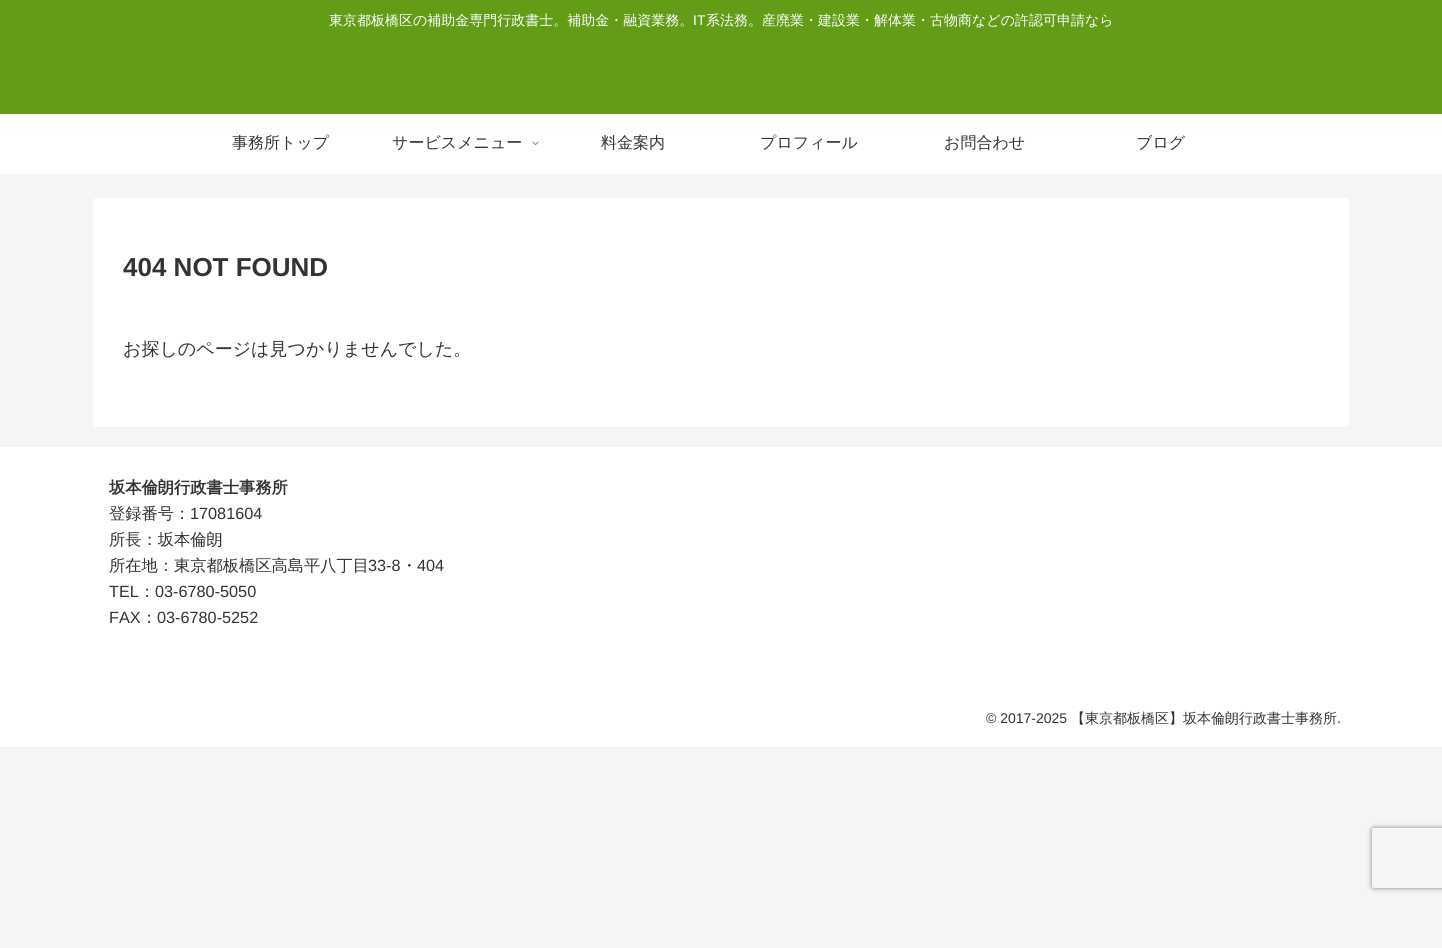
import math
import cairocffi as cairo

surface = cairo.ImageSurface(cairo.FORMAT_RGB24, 1442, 948)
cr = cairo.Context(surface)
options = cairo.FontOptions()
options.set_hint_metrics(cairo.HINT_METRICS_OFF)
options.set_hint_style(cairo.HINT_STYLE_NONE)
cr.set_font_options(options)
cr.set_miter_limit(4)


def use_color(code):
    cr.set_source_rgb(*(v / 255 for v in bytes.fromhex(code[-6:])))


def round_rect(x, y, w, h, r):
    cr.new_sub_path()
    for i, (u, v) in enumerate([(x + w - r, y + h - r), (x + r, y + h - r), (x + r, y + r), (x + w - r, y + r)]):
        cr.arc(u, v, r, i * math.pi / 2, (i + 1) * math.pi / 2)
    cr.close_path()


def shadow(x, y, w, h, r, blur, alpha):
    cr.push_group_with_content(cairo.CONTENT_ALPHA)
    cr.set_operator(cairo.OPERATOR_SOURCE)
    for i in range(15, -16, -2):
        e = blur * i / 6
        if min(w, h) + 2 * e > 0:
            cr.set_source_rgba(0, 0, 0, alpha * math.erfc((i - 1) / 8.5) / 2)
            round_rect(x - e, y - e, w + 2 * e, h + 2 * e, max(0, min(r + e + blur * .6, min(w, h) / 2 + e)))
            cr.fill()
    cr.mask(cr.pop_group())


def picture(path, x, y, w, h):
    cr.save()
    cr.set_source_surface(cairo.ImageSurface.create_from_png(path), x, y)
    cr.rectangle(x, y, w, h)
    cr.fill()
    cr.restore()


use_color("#f4f5f7")
cr.paint()
use_color("#ffffff")
cr.rectangle(0, 114, 1442, 60)
cr.fill()
use_color("#639c17")
cr.rectangle(0, 0, 1442, 114)
cr.fill()
cr.select_font_face("WenQuanYi Zen Hei Medium")
cr.set_font_size(14)
use_color("#ffffff")
cr.move_to(329, 25)
cr.show_text("東京都板橋区の補助金専門行政書士。補助金・融資業務。")
cr.select_font_face("Liberation Sans")
cr.move_to(693, 25)
cr.show_text("IT")
cr.select_font_face("WenQuanYi Zen Hei Medium")
cr.move_to(706, 25)
cr.show_text("系法務。産廃業・建設業・解体業・古物商などの許認可申請なら")
cr.set_font_size(16)
use_color("#333333")
cr.move_to(232, 148)
cr.show_text("事務所トップ")
cr.move_to(392, 148)
cr.show_text("サービスメニュー")
picture("img1.png", 532, 141, 7, 5)
cr.move_to(601, 148)
cr.show_text("料金案内")
cr.move_to(760, 148)
cr.show_text("プロフィール")
cr.move_to(944, 148)
cr.show_text("お問合わせ")
cr.move_to(1136, 148)
cr.show_text("ブログ")
use_color("#ffffff")
round_rect(93, 198, 1256, 229, 4)
cr.fill()
cr.select_font_face("Liberation Sans", cairo.FONT_SLANT_NORMAL, cairo.FONT_WEIGHT_BOLD)
cr.set_font_size(26)
use_color("#333333")
cr.move_to(123, 276)
cr.show_text("404 NOT FOUND")
cr.select_font_face("WenQuanYi Zen Hei Medium")
cr.set_font_size(18)
cr.move_to(123, 355)
cr.show_text("お探しのページは見つかりませんでした。")
use_color("#ffffff")
cr.rectangle(0, 447, 1442, 300)
cr.fill()
cr.select_font_face("WenQuanYi Zen Hei", cairo.FONT_SLANT_NORMAL, cairo.FONT_WEIGHT_BOLD)
cr.set_font_size(16.25)
use_color("#333333")
cr.move_to(109, 493)
cr.show_text("坂本倫朗行政書士事務所")
cr.select_font_face("WenQuanYi Zen Hei Medium")
cr.move_to(109, 519)
cr.show_text("登録番号：")
cr.select_font_face("Liberation Sans")
cr.move_to(190, 519)
cr.show_text("17081604")
cr.select_font_face("WenQuanYi Zen Hei Medium")
cr.move_to(109, 545)
cr.show_text("所長：坂本倫朗")
cr.move_to(109, 571)
cr.show_text("所在地：東京都板橋区高島平八丁目")
cr.select_font_face("Liberation Sans")
cr.move_to(368, 571)
cr.show_text("33-8")
cr.select_font_face("WenQuanYi Zen Hei Medium")
cr.move_to(401, 571)
cr.show_text("・")
cr.select_font_face("Liberation Sans")
cr.move_to(417, 571)
cr.show_text("404")
cr.move_to(109, 597)
cr.show_text("TEL")
cr.select_font_face("WenQuanYi Zen Hei Medium")
cr.move_to(139, 597)
cr.show_text("：")
cr.select_font_face("Liberation Sans")
cr.move_to(155, 597)
cr.show_text("03-6780-5050")
cr.move_to(109, 623)
cr.show_text("FAX")
cr.select_font_face("WenQuanYi Zen Hei Medium")
cr.move_to(141, 623)
cr.show_text("：")
cr.select_font_face("Liberation Sans")
cr.move_to(157, 623)
cr.show_text("03-6780-5252")
cr.set_font_size(14)
cr.move_to(986, 723)
cr.show_text("© 2017-2025")
cr.select_font_face("WenQuanYi Zen Hei Medium")
cr.move_to(1071, 723)
cr.show_text("【東京都板橋区】坂本倫朗行政書士事務所")
cr.select_font_face("Liberation Sans")
cr.move_to(1337, 723)
cr.show_text(".")
cr.save()
cr.set_fill_rule(cairo.FILL_RULE_EVEN_ODD)
cr.new_path()
cr.move_to(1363, 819)
cr.line_to(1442, 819)
cr.line_to(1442, 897)
cr.line_to(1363, 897)
cr.close_path()
cr.move_to(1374, 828)
cr.line_to(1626, 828)
cr.curve_to(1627, 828, 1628, 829, 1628, 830)
cr.line_to(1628, 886)
cr.curve_to(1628, 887, 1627, 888, 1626, 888)
cr.line_to(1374, 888)
cr.curve_to(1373, 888, 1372, 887, 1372, 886)
cr.line_to(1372, 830)
cr.curve_to(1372, 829, 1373, 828, 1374, 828)
cr.close_path()
cr.clip()
use_color("#808080")
shadow(1372, 828, 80, 60, 2, 2.5, 1)
cr.restore()
surface.write_to_png("result.png")
